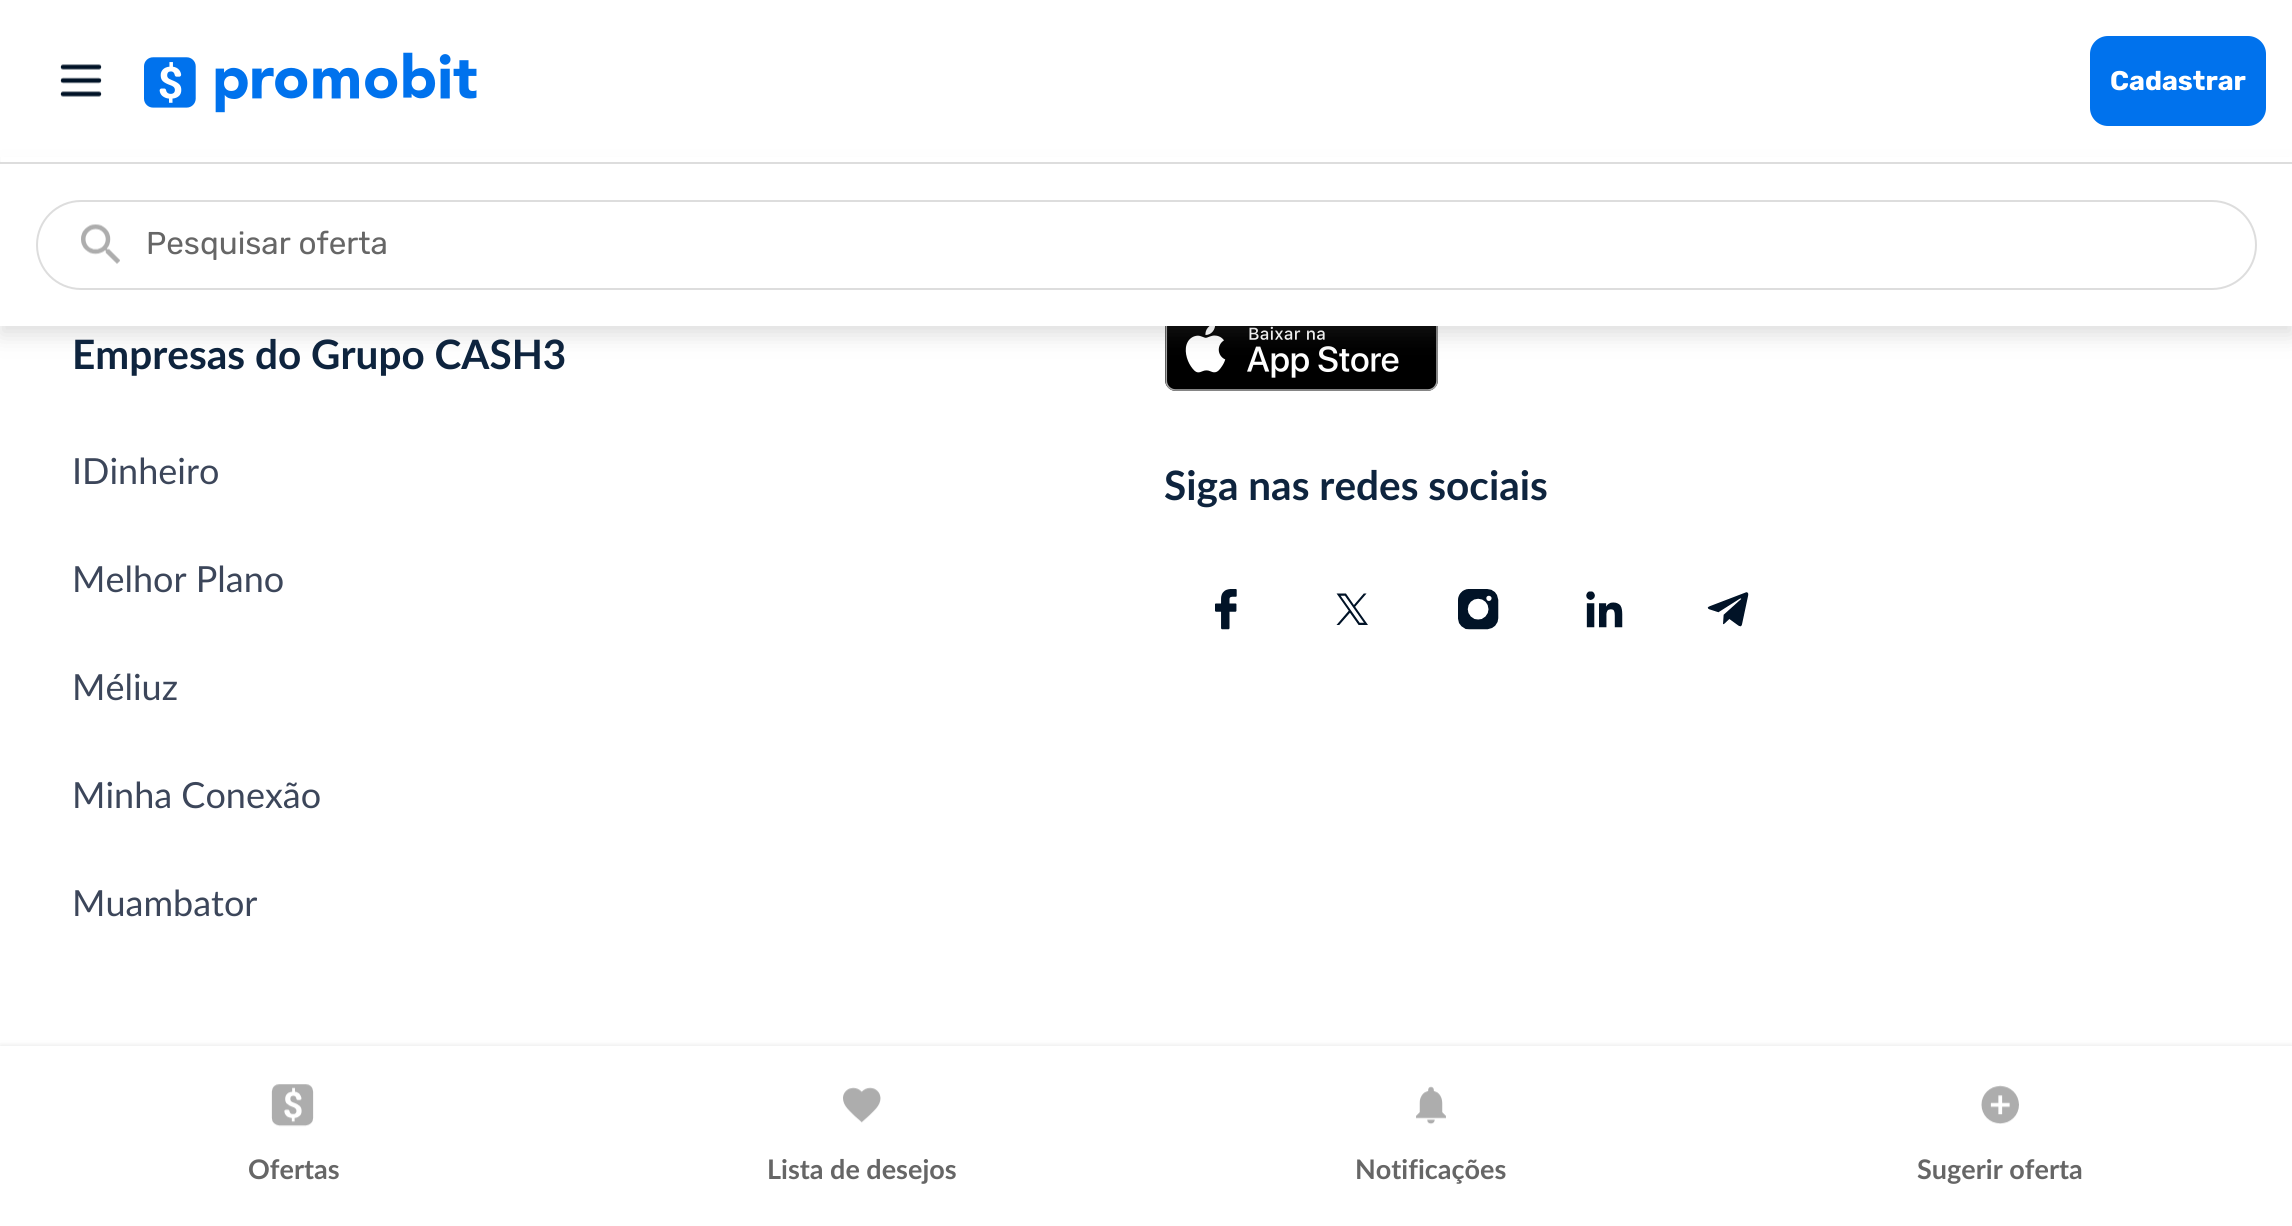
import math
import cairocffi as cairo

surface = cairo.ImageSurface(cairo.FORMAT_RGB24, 2292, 1226)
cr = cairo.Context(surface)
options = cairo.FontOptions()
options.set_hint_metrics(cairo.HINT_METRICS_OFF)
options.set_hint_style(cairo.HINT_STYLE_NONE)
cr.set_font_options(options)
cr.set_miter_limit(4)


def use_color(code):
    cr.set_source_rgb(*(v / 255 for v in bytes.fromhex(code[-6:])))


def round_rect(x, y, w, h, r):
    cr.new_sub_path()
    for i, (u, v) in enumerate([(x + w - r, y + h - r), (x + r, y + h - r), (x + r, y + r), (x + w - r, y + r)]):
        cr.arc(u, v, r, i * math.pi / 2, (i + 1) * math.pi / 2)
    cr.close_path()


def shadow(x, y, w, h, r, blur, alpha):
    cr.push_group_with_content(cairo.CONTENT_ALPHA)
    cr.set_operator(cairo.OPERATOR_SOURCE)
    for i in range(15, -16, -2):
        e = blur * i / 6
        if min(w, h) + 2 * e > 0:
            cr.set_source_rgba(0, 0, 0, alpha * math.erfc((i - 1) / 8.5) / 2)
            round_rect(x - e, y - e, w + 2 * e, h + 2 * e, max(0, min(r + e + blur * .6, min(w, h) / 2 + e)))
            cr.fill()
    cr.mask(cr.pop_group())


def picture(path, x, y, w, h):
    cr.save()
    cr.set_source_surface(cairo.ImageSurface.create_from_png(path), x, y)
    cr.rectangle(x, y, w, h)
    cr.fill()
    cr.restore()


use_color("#ffffff")
cr.paint()
picture("img4.png", 1165, 326, 273, 65)
use_color("#575757")
shadow(0, 173, 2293, 162, 0, 11, 0.2)
use_color("#ffffff")
cr.rectangle(1, 157, 2291, 5)
cr.fill()
use_color("#dddddd")
cr.rectangle(0, 162, 2292, 2)
cr.fill()
picture("img1.png", 60, 64, 42, 33)
picture("img2.png", 144, 52, 333, 61)
use_color("#0072ed")
round_rect(2091, 37, 174, 88, 17)
cr.fill_preserve()
cr.stroke()
cr.select_font_face("Rubik", cairo.FONT_SLANT_NORMAL, cairo.FONT_WEIGHT_BOLD)
cr.set_font_size(27)
use_color("#ffffff")
cr.move_to(2110, 90)
cr.show_text("Cadastrar")
cr.rectangle(0, 164, 2292, 162)
cr.fill()
round_rect(37, 201, 2219, 88, 44)
use_color("#dddddd")
cr.stroke()
picture("img3.png", 81, 224, 39, 40)
cr.select_font_face("Rubik")
cr.set_font_size(31.5)
use_color("#666666")
cr.move_to(146, 254)
cr.show_text("Pesquisar oferta")
cr.select_font_face("Lato", cairo.FONT_SLANT_NORMAL, cairo.FONT_WEIGHT_BOLD)
cr.set_font_size(40.5)
use_color("#0e243e")
cr.move_to(72, 369)
cr.show_text("Empresas do Grupo CASH3")
cr.select_font_face("Lato")
cr.set_font_size(36)
use_color("#3c465a")
cr.move_to(72, 484)
cr.show_text("IDinheiro")
cr.move_to(72, 592)
cr.show_text("Melhor Plano")
cr.move_to(72, 700)
cr.show_text("Méliuz")
cr.move_to(72, 808)
cr.show_text("Minha Conexão")
cr.move_to(72, 916)
cr.show_text("Muambator")
cr.select_font_face("Lato", cairo.FONT_SLANT_NORMAL, cairo.FONT_WEIGHT_BOLD)
cr.set_font_size(40.5)
use_color("#0e243e")
cr.move_to(1164, 500)
cr.show_text("Siga nas redes sociais")
picture("img5.png", 1215, 589, 22, 41)
picture("img6.png", 1336, 593, 32, 32)
picture("img7.png", 1458, 589, 41, 41)
picture("img8.png", 1586, 591, 37, 37)
picture("img9.png", 1707, 592, 42, 35)
use_color("#121212")
shadow(0, 1051, 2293, 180, 0, 4.5, 0.5)
use_color("#ffffff")
cr.rectangle(0, 1046, 2292, 180)
cr.fill()
picture("img10.png", 271, 1084, 43, 43)
cr.set_font_size(27)
use_color("#666666")
cr.move_to(248, 1179)
cr.show_text("Ofertas")
picture("img11.png", 843, 1087, 38, 36)
cr.move_to(767, 1179)
cr.show_text("Lista de desejos")
picture("img12.png", 1416, 1086, 30, 39)
cr.move_to(1355, 1179)
cr.show_text("Notificações")
picture("img13.png", 1981, 1085, 38, 39)
cr.move_to(1917, 1179)
cr.show_text("Sugerir oferta")
surface.write_to_png("result.png")
